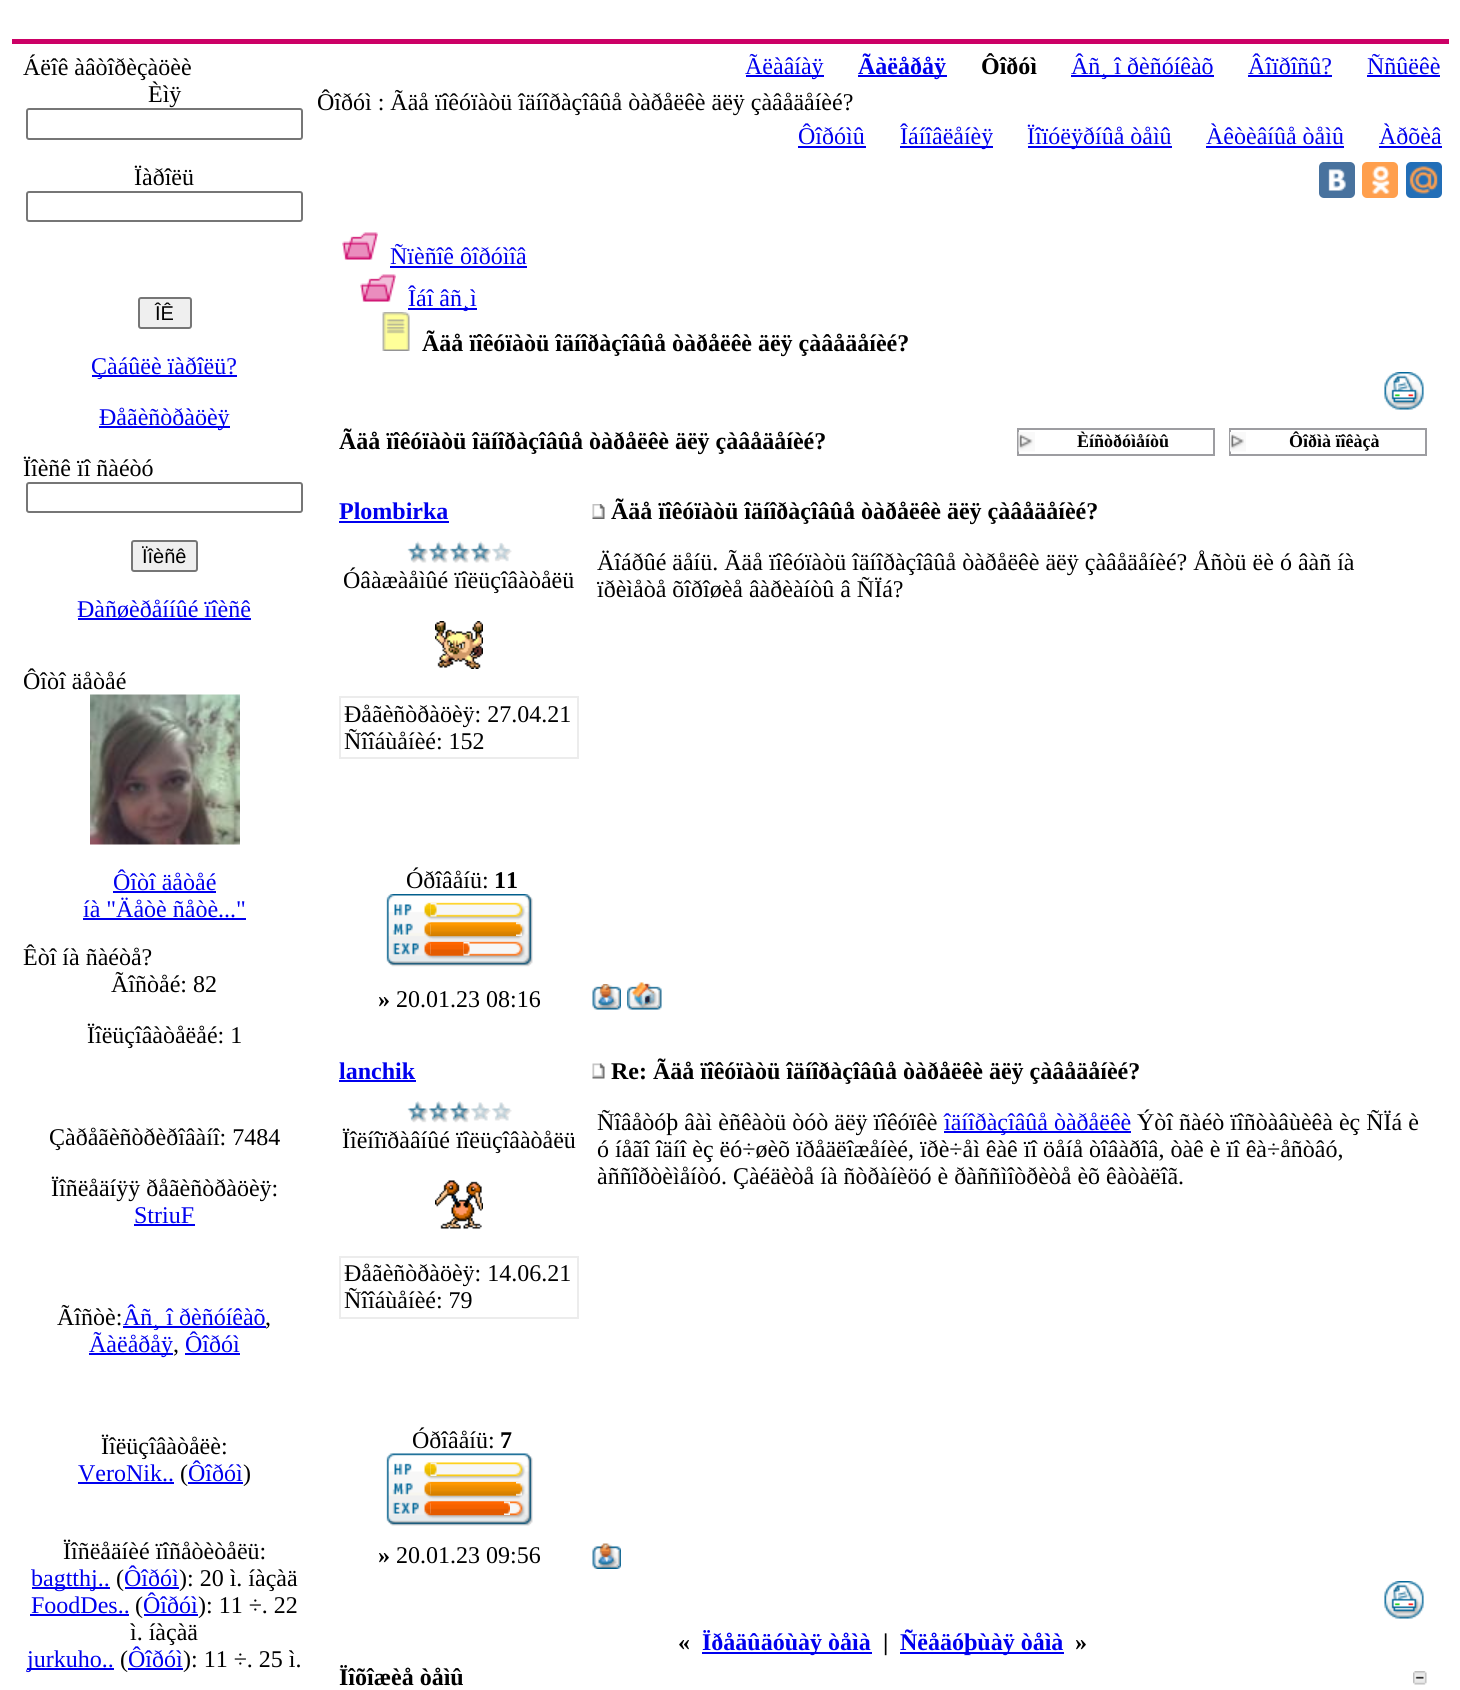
import math
import cairocffi as cairo

surface = cairo.ImageSurface(cairo.FORMAT_RGB24, 1460, 1690)
cr = cairo.Context(surface)
options = cairo.FontOptions()
options.set_hint_metrics(cairo.HINT_METRICS_OFF)
options.set_hint_style(cairo.HINT_STYLE_NONE)
cr.set_font_options(options)
cr.set_miter_limit(4)


def use_color(code):
    cr.set_source_rgb(*(v / 255 for v in bytes.fromhex(code[-6:])))


def round_rect(x, y, w, h, r):
    cr.new_sub_path()
    for i, (u, v) in enumerate([(x + w - r, y + h - r), (x + r, y + h - r), (x + r, y + r), (x + w - r, y + r)]):
        cr.arc(u, v, r, i * math.pi / 2, (i + 1) * math.pi / 2)
    cr.close_path()


def picture(path, x, y, w, h):
    cr.save()
    cr.set_source_surface(cairo.ImageSurface.create_from_png(path), x, y)
    cr.rectangle(x, y, w, h)
    cr.fill()
    cr.restore()


use_color("#ffffff")
cr.paint()
use_color("#cc0066")
cr.rectangle(12, 39, 1437, 5)
cr.fill()
cr.select_font_face("Liberation Serif")
cr.set_font_size(24)
use_color("#000000")
cr.move_to(23, 75)
cr.show_text("Áëîê àâòîðèçàöèè")
cr.move_to(148, 102)
cr.show_text("Èìÿ")
round_rect(27, 109, 275, 30, 2)
use_color("#767676")
cr.stroke()
use_color("#000000")
cr.move_to(134, 185)
cr.show_text("Ïàðîëü")
round_rect(27, 192, 275, 29, 2)
use_color("#767676")
cr.stroke()
use_color("#efefef")
round_rect(139, 298, 52, 30, 2)
cr.fill_preserve()
use_color("#767676")
cr.stroke()
cr.select_font_face("Liberation Sans")
cr.set_font_size(20)
use_color("#000000")
cr.move_to(155, 320)
cr.show_text("ÎÊ")
use_color("#0000ee")
cr.rectangle(92, 375, 145, 2)
cr.fill()
cr.select_font_face("Liberation Serif")
cr.set_font_size(24)
cr.move_to(91, 374)
cr.show_text("Çàáûëè ïàðîëü?")
cr.rectangle(99, 426, 131, 2)
cr.fill()
cr.move_to(99, 425)
cr.show_text("Ðåãèñòðàöèÿ")
use_color("#000000")
cr.move_to(23, 476)
cr.show_text("Ïîèñê ïî ñàéòó")
round_rect(27, 483, 275, 29, 2)
use_color("#767676")
cr.stroke()
use_color("#efefef")
round_rect(132, 541, 65, 30, 2)
cr.fill_preserve()
use_color("#767676")
cr.stroke()
cr.select_font_face("Liberation Sans")
cr.set_font_size(20)
use_color("#000000")
cr.move_to(142, 563)
cr.show_text("Ïîèñê")
cr.select_font_face("Liberation Serif")
cr.set_font_size(24)
use_color("#0000ee")
cr.move_to(77, 617)
cr.show_text("Ðàñøèðåííûé ïîèñê")
cr.rectangle(78, 618, 173, 2)
cr.fill()
use_color("#000000")
cr.move_to(23, 689)
cr.show_text("Ôîòî äåòåé")
picture("img1.png", 90, 694, 150, 151)
use_color("#0000ee")
cr.move_to(113, 890)
cr.show_text("Ôîòî äåòåé")
cr.rectangle(113, 891, 103, 2)
cr.fill()
cr.move_to(83, 917)
cr.show_text("íà \"Äåòè ñåòè...\"")
cr.rectangle(83, 918, 163, 2)
cr.fill()
use_color("#000000")
cr.move_to(23, 965)
cr.show_text("Êòî íà ñàéòå?")
cr.move_to(111, 992)
cr.show_text("Ãîñòåé: 82")
cr.move_to(87, 1043)
cr.show_text("Ïîëüçîâàòåëåé: 1")
cr.move_to(49, 1145)
cr.show_text("Çàðåãèñòðèðîâàíî: 7484")
cr.move_to(51, 1196)
cr.show_text("Ïîñëåäíÿÿ ðåãèñòðàöèÿ:")
use_color("#0000ee")
cr.move_to(134, 1223)
cr.show_text("StriuF")
cr.rectangle(134, 1224, 61, 2)
cr.fill()
use_color("#000000")
cr.move_to(57, 1325)
cr.show_text("Ãîñòè:")
use_color("#0000ee")
cr.rectangle(123, 1326, 143, 2)
cr.fill()
cr.move_to(123, 1325)
cr.show_text("Âñ¸ î ðèñóíêàõ")
use_color("#000000")
cr.move_to(265, 1325)
cr.show_text(",")
use_color("#0000ee")
cr.rectangle(89, 1353, 84, 2)
cr.fill()
cr.move_to(89, 1352)
cr.show_text("Ãàëåðåÿ")
use_color("#000000")
cr.move_to(173, 1352)
cr.show_text(",")
use_color("#0000ee")
cr.move_to(185, 1352)
cr.show_text("Ôîðóì")
cr.rectangle(185, 1353, 55, 2)
cr.fill()
use_color("#000000")
cr.move_to(101, 1454)
cr.show_text("Ïîëüçîâàòåëè:")
use_color("#0000ee")
cr.move_to(78, 1481)
cr.show_text("VeroNik..")
cr.rectangle(78, 1482, 96, 2)
cr.fill()
use_color("#000000")
cr.move_to(180, 1481)
cr.show_text("(")
use_color("#0000ee")
cr.move_to(188, 1481)
cr.show_text("Ôîðóì")
cr.rectangle(188, 1482, 55, 2)
cr.fill()
use_color("#000000")
cr.move_to(243, 1481)
cr.show_text(")")
cr.move_to(63, 1559)
cr.show_text("Ïîñëåäíèé ïîñåòèòåëü:")
use_color("#0000ee")
cr.rectangle(32, 1587, 78, 2)
cr.fill()
cr.move_to(31, 1586)
cr.show_text("bagtthj..")
use_color("#000000")
cr.move_to(116, 1586)
cr.show_text("(")
use_color("#0000ee")
cr.move_to(124, 1586)
cr.show_text("Ôîðóì")
cr.rectangle(125, 1587, 54, 2)
cr.fill()
use_color("#000000")
cr.move_to(179, 1586)
cr.show_text("): 20 ì. íàçàä")
use_color("#0000ee")
cr.move_to(31, 1613)
cr.show_text("FoodDes..")
cr.rectangle(30, 1614, 99, 2)
cr.fill()
use_color("#000000")
cr.move_to(135, 1613)
cr.show_text("(")
use_color("#0000ee")
cr.move_to(143, 1613)
cr.show_text("Ôîðóì")
cr.rectangle(144, 1614, 54, 2)
cr.fill()
use_color("#000000")
cr.move_to(198, 1613)
cr.show_text("): 11 ÷. 22")
cr.move_to(130, 1640)
cr.show_text("ì. íàçàä")
use_color("#0000ee")
cr.rectangle(27, 1668, 87, 2)
cr.fill()
cr.move_to(27, 1667)
cr.show_text("jurkuho..")
use_color("#000000")
cr.move_to(120, 1667)
cr.show_text("(")
use_color("#0000ee")
cr.move_to(128, 1667)
cr.show_text("Ôîðóì")
cr.rectangle(128, 1668, 55, 2)
cr.fill()
use_color("#000000")
cr.move_to(183, 1667)
cr.show_text("): 11 ÷. 25 ì.")
use_color("#0000ee")
cr.rectangle(746, 75, 78, 2)
cr.fill()
cr.move_to(745, 74)
cr.show_text("Ãëàâíàÿ")
cr.rectangle(858, 75, 89, 2)
cr.fill()
cr.select_font_face("Liberation Serif", cairo.FONT_SLANT_NORMAL, cairo.FONT_WEIGHT_BOLD)
cr.move_to(858, 74)
cr.show_text("Ãàëåðåÿ")
use_color("#000000")
cr.move_to(981, 74)
cr.show_text("Ôîðóì")
use_color("#0000ee")
cr.rectangle(1071, 75, 143, 2)
cr.fill()
cr.select_font_face("Liberation Serif")
cr.move_to(1071, 74)
cr.show_text("Âñ¸ î ðèñóíêàõ")
cr.move_to(1248, 74)
cr.show_text("Âîïðîñû?")
cr.rectangle(1248, 75, 84, 2)
cr.fill()
cr.move_to(1367, 74)
cr.show_text("Ññûëêè")
cr.rectangle(1367, 75, 73, 2)
cr.fill()
use_color("#000000")
cr.move_to(317, 110)
cr.show_text("Ôîðóì : Ãäå ïîêóïàòü îäíîðàçîâûå òàðåëêè äëÿ çàâåäåíèé?")
use_color("#0000ee")
cr.move_to(798, 144)
cr.show_text("Ôîðóìû")
cr.rectangle(798, 146, 68, 2)
cr.fill()
cr.rectangle(900, 146, 93, 2)
cr.fill()
cr.move_to(900, 144)
cr.show_text("Îáíîâëåíèÿ")
cr.rectangle(1028, 146, 144, 2)
cr.fill()
cr.move_to(1027, 144)
cr.show_text("Ïîïóëÿðíûå òåìû")
cr.move_to(1206, 144)
cr.show_text("Àêòèâíûå òåìû")
cr.rectangle(1206, 146, 138, 2)
cr.fill()
cr.move_to(1379, 144)
cr.show_text("Àðõèâ")
cr.rectangle(1379, 146, 63, 2)
cr.fill()
use_color("#48729e")
round_rect(1319, 162, 36, 36, 5)
cr.fill()
picture("img2.png", 1328, 169, 18, 22)
use_color("#ff9f4d")
round_rect(1362, 162, 36, 36, 5)
cr.fill()
picture("img3.png", 1372, 166, 18, 28)
use_color("#226eb7")
round_rect(1406, 162, 36, 36, 5)
cr.fill()
picture("img4.png", 1409, 166, 29, 28)
picture("img5.png", 342, 232, 36, 28)
use_color("#0000ee")
cr.move_to(390, 264)
cr.show_text("Ñïèñîê ôîðóìîâ")
cr.rectangle(390, 266, 137, 2)
cr.fill()
picture("img5.png", 360, 274, 36, 28)
cr.rectangle(408, 308, 69, 2)
cr.fill()
cr.move_to(408, 306)
cr.show_text("Îáî âñ¸ì")
picture("img6.png", 382, 312, 28, 39)
cr.select_font_face("Liberation Serif", cairo.FONT_SLANT_NORMAL, cairo.FONT_WEIGHT_BOLD)
use_color("#000000")
cr.move_to(422, 351)
cr.show_text("Ãäå ïîêóïàòü îäíîðàçîâûå òàðåëêè äëÿ çàâåäåíèé?")
picture("img7.png", 1384, 372, 40, 38)
cr.move_to(339, 449)
cr.show_text("Ãäå ïîêóïàòü îäíîðàçîâûå òàðåëêè äëÿ çàâåäåíèé?")
cr.rectangle(1018, 429, 196, 26)
use_color("#9d9da1")
cr.stroke()
picture("img8.png", 1018, 432, 17, 20)
cr.set_font_size(18)
use_color("#000000")
cr.move_to(1077, 447)
cr.show_text("Èíñòðóìåíòû")
cr.rectangle(1230, 429, 196, 26)
use_color("#9d9da1")
cr.stroke()
picture("img9.png", 1230, 432, 16, 20)
use_color("#000000")
cr.move_to(1289, 447)
cr.show_text("Ôîðìà ïîêàçà")
cr.set_font_size(24)
use_color("#0000ee")
cr.move_to(339, 519)
cr.show_text("Plombirka")
cr.rectangle(339, 521, 110, 2)
cr.fill()
picture("img10.png", 592, 504, 13, 15)
use_color("#000000")
cr.move_to(611, 519)
cr.show_text("Ãäå ïîêóïàòü îäíîðàçîâûå òàðåëêè äëÿ çàâåäåíèé?")
picture("img11.png", 407, 541, 105, 22)
cr.select_font_face("Liberation Serif")
cr.move_to(343, 588)
cr.show_text("Óâàæàåìûé ïîëüçîâàòåëü")
picture("img12.png", 435, 621, 48, 48)
cr.rectangle(340, 697, 238, 61)
use_color("#ececec")
cr.stroke()
use_color("#000000")
cr.move_to(344, 722)
cr.show_text("Ðåãèñòðàöèÿ: 27.04.21")
cr.move_to(344, 749)
cr.show_text("Ñîîáùåíèé: 152")
cr.move_to(406, 888)
cr.show_text("Óðîâåíü:")
cr.select_font_face("Liberation Serif", cairo.FONT_SLANT_NORMAL, cairo.FONT_WEIGHT_BOLD)
cr.move_to(494, 888)
cr.show_text("11")
picture("img13.png", 386, 894, 147, 73)
picture("img14.png", 430, 903, 7, 14)
picture("img15.png", 430, 922, 86, 14)
picture("img16.png", 516, 922, 6, 14)
picture("img17.png", 430, 942, 34, 14)
picture("img18.png", 463, 942, 7, 14)
cr.select_font_face("Liberation Serif")
cr.move_to(597, 570)
cr.show_text("Äîáðûé äåíü. Ãäå ïîêóïàòü îäíîðàçîâûå òàðåëêè äëÿ çàâåäåíèé? Åñòü ëè ó âàñ íà")
cr.move_to(597, 597)
cr.show_text("ïðèìåòå õîðîøèå âàðèàíòû â ÑÏá?")
cr.select_font_face("Liberation Serif", cairo.FONT_SLANT_NORMAL, cairo.FONT_WEIGHT_BOLD)
cr.move_to(378, 1007)
cr.show_text("»")
cr.select_font_face("Liberation Serif")
cr.move_to(396, 1007)
cr.show_text("20.01.23 08:16")
picture("img19.png", 592, 984, 29, 26)
picture("img20.png", 627, 982, 35, 28)
cr.select_font_face("Liberation Serif", cairo.FONT_SLANT_NORMAL, cairo.FONT_WEIGHT_BOLD)
use_color("#0000ee")
cr.move_to(339, 1079)
cr.show_text("lanchik")
cr.rectangle(339, 1080, 77, 2)
cr.fill()
picture("img21.png", 592, 1063, 13, 16)
use_color("#000000")
cr.move_to(611, 1079)
cr.show_text("Re: Ãäå ïîêóïàòü îäíîðàçîâûå òàðåëêè äëÿ çàâåäåíèé?")
picture("img22.png", 407, 1101, 105, 22)
cr.select_font_face("Liberation Serif")
cr.move_to(342, 1148)
cr.show_text("Ïîëíîïðàâíûé ïîëüçîâàòåëü")
picture("img23.png", 435, 1180, 48, 49)
cr.rectangle(340, 1257, 238, 61)
use_color("#ececec")
cr.stroke()
use_color("#000000")
cr.move_to(344, 1281)
cr.show_text("Ðåãèñòðàöèÿ: 14.06.21")
cr.move_to(344, 1308)
cr.show_text("Ñîîáùåíèé: 79")
cr.move_to(412, 1448)
cr.show_text("Óðîâåíü:")
cr.select_font_face("Liberation Serif", cairo.FONT_SLANT_NORMAL, cairo.FONT_WEIGHT_BOLD)
cr.move_to(500, 1448)
cr.show_text("7")
picture("img24.png", 386, 1453, 147, 73)
picture("img25.png", 430, 1462, 7, 14)
picture("img26.png", 430, 1482, 86, 14)
picture("img27.png", 516, 1482, 6, 14)
picture("img28.png", 430, 1501, 74, 14)
picture("img29.png", 504, 1501, 6, 14)
cr.select_font_face("Liberation Serif")
cr.move_to(597, 1130)
cr.show_text("Ñîâåòóþ âàì èñêàòü òóò äëÿ ïîêóïêè")
use_color("#0000ee")
cr.rectangle(944, 1131, 187, 2)
cr.fill()
cr.move_to(944, 1130)
cr.show_text("îäíîðàçîâûå òàðåëêè")
use_color("#000000")
cr.move_to(1137, 1130)
cr.show_text("Ýòî ñàéò ïîñòàâùèêà èç ÑÏá è")
cr.move_to(597, 1157)
cr.show_text("ó íåãî îäíî èç ëó÷øèõ ïðåäëîæåíèé, ïðè÷åì êàê ïî öåíå òîâàðîâ, òàê è ïî êà÷åñòâó,")
cr.move_to(597, 1184)
cr.show_text("àññîðòèìåíòó. Çàéäèòå íà ñòðàíèöó è ðàññìîòðèòå èõ êàòàëîã.")
cr.select_font_face("Liberation Serif", cairo.FONT_SLANT_NORMAL, cairo.FONT_WEIGHT_BOLD)
cr.move_to(378, 1563)
cr.show_text("»")
cr.select_font_face("Liberation Serif")
cr.move_to(396, 1563)
cr.show_text("20.01.23 09:56")
picture("img30.png", 592, 1543, 29, 26)
picture("img7.png", 1384, 1581, 40, 38)
cr.select_font_face("Liberation Serif", cairo.FONT_SLANT_NORMAL, cairo.FONT_WEIGHT_BOLD)
cr.move_to(678, 1650)
cr.show_text("«")
use_color("#0000ee")
cr.rectangle(702, 1652, 170, 2)
cr.fill()
cr.move_to(702, 1650)
cr.show_text("Ïðåäûäóùàÿ òåìà")
use_color("#000000")
cr.move_to(883, 1650)
cr.show_text("|")
use_color("#0000ee")
cr.rectangle(900, 1652, 164, 2)
cr.fill()
cr.move_to(900, 1650)
cr.show_text("Ñëåäóþùàÿ òåìà")
use_color("#000000")
cr.move_to(1075, 1650)
cr.show_text("»")
cr.move_to(339, 1685)
cr.show_text("Ïîõîæèå òåìû")
picture("img31.png", 1413, 1671, 14, 14)
surface.write_to_png("result.png")
